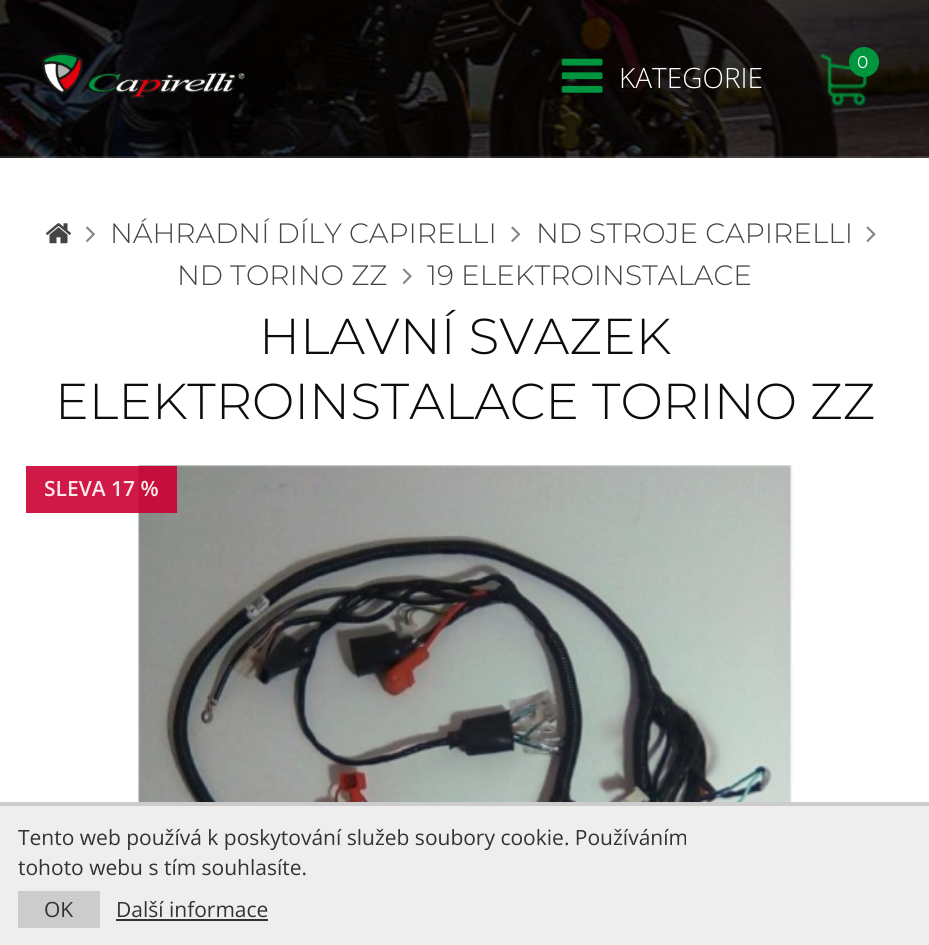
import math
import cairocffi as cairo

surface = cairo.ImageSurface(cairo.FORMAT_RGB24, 929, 945)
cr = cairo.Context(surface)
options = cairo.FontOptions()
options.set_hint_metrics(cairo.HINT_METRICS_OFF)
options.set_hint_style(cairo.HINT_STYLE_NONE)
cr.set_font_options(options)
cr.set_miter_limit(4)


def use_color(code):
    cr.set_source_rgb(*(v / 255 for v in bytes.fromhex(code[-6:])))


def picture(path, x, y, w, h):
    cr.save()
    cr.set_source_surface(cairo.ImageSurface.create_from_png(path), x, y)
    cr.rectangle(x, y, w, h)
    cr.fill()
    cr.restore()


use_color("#ffffff")
cr.paint()
picture("img1.png", 0, 0, 929, 158)
cr.set_source_rgba(1, 1, 1, 0.12)
cr.rectangle(0, 156, 929, 2)
cr.fill()
picture("img2.png", 42, 52, 203, 46)
picture("img3.png", 820, 53, 48, 54)
use_color("#00963f")
cr.arc(864, 62, 15, 0, 2 * math.pi)
cr.fill()
cr.select_font_face("Montserrat")
cr.set_font_size(17)
use_color("#ffffff")
cr.move_to(857, 68)
cr.show_text("0")
picture("img4.png", 561, 58, 42, 35)
cr.select_font_face("Open Sans Light")
cr.set_font_size(28)
cr.move_to(619, 88)
cr.show_text("KATEGORIE")
picture("img5.png", 45, 223, 27, 21)
picture("img6.png", 86, 226, 9, 16)
cr.select_font_face("Montserrat Light")
use_color("#444444")
cr.move_to(110, 243)
cr.show_text("NÁHRADNÍ DÍLY CAPIRELLI")
picture("img7.png", 511, 226, 10, 16)
cr.move_to(536, 243)
cr.show_text("ND STROJE CAPIRELLI")
picture("img8.png", 866, 226, 10, 16)
cr.move_to(177, 285)
cr.show_text("ND TORINO ZZ")
picture("img9.png", 402, 268, 10, 16)
cr.move_to(427, 285)
cr.show_text("19 ELEKTROINSTALACE")
cr.set_font_size(50.4)
use_color("#0c0c0c")
cr.move_to(259, 354)
cr.show_text("HLAVNÍ SVAZEK")
cr.move_to(55, 419)
cr.show_text("ELEKTROINSTALACE TORINO ZZ")
picture("img10.png", 136, 465, 657, 337)
cr.set_source_rgba(0.8, 0, 0.2, 0.9)
cr.rectangle(26, 466, 151, 47)
cr.fill()
cr.select_font_face("Open Sans SemiBold")
cr.set_font_size(21)
use_color("#fae8ec")
cr.move_to(44, 496)
cr.show_text("SLEVA 17 %")
use_color("#eeeeee")
cr.rectangle(0, 806, 929, 139)
cr.fill()
use_color("#cccccc")
cr.rectangle(0, 802, 929, 4)
cr.fill()
cr.select_font_face("Open Sans")
use_color("#333333")
cr.move_to(18, 845)
cr.show_text("Tento web používá k poskytování služeb soubory cookie. Používáním")
cr.move_to(18, 875)
cr.show_text("tohoto webu s tím souhlasíte.")
use_color("#cccccc")
cr.rectangle(18, 891, 82, 37)
cr.fill()
use_color("#333333")
cr.move_to(44, 917)
cr.show_text("OK")
cr.move_to(116, 917)
cr.show_text("Další informace")
cr.rectangle(116, 919, 152, 2)
cr.fill()
surface.write_to_png("result.png")
